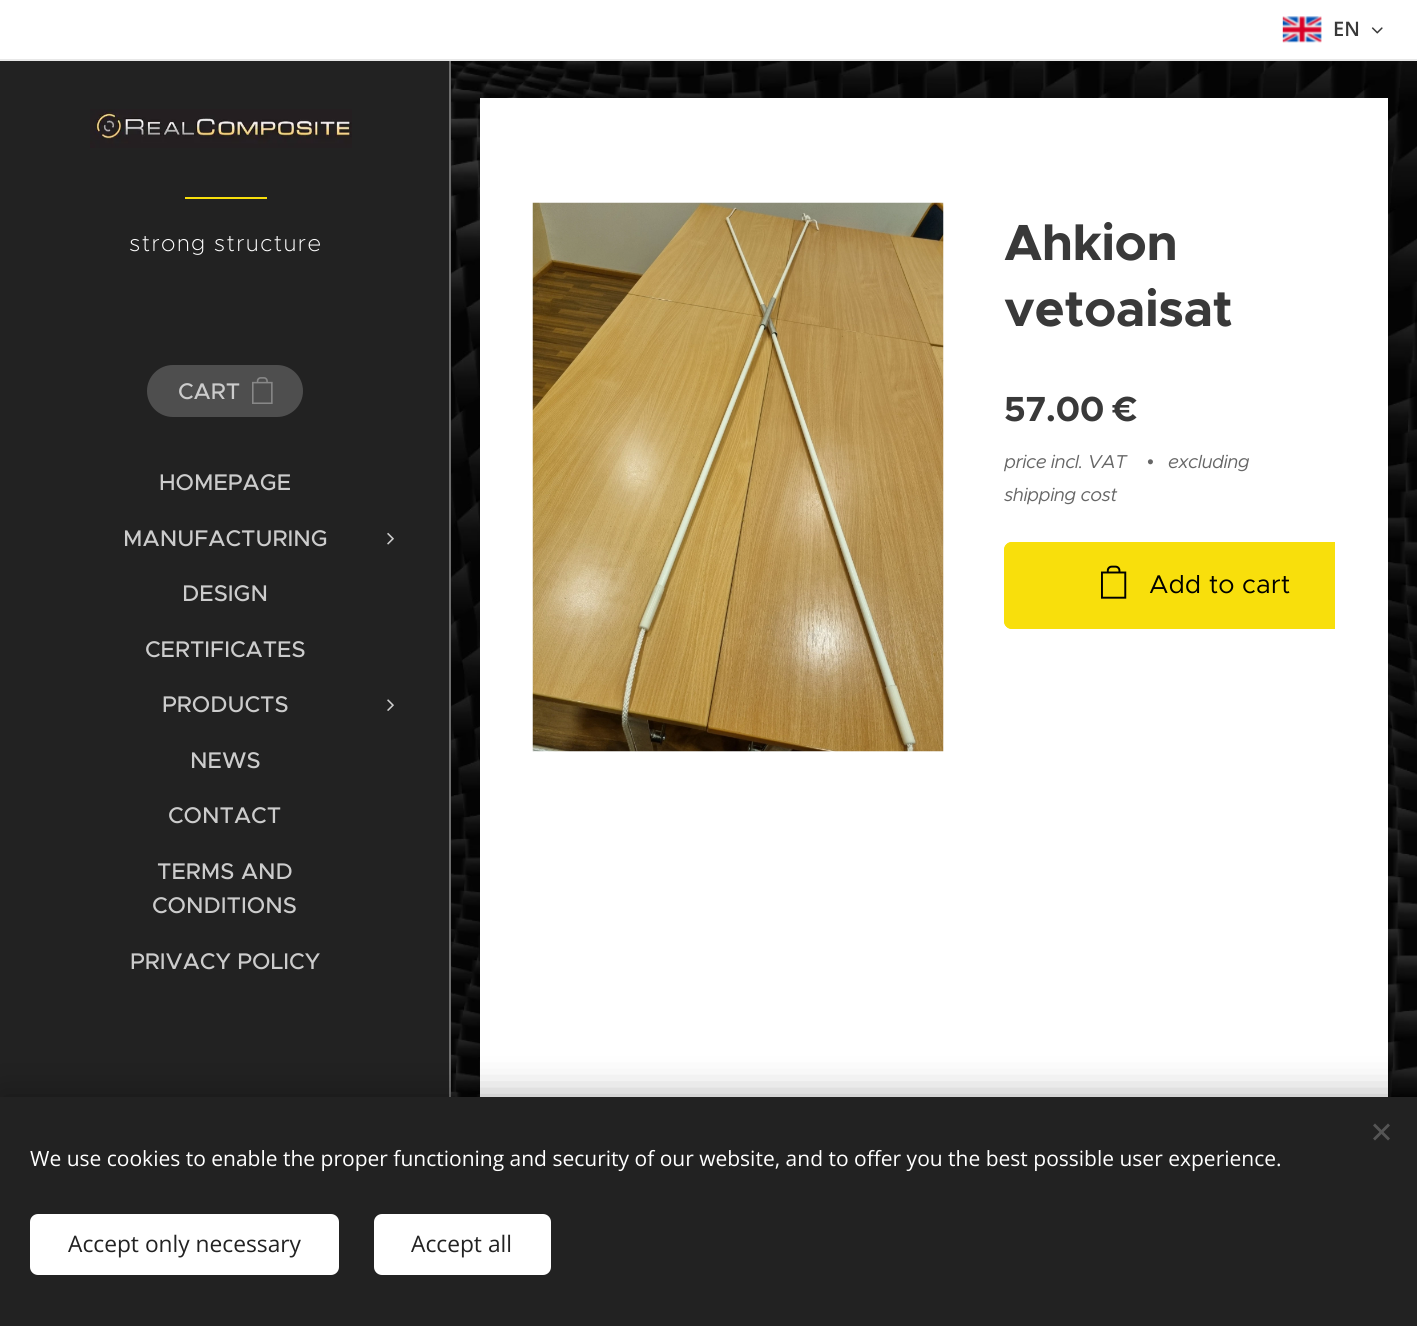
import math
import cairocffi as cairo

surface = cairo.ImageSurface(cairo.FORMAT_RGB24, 1417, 1326)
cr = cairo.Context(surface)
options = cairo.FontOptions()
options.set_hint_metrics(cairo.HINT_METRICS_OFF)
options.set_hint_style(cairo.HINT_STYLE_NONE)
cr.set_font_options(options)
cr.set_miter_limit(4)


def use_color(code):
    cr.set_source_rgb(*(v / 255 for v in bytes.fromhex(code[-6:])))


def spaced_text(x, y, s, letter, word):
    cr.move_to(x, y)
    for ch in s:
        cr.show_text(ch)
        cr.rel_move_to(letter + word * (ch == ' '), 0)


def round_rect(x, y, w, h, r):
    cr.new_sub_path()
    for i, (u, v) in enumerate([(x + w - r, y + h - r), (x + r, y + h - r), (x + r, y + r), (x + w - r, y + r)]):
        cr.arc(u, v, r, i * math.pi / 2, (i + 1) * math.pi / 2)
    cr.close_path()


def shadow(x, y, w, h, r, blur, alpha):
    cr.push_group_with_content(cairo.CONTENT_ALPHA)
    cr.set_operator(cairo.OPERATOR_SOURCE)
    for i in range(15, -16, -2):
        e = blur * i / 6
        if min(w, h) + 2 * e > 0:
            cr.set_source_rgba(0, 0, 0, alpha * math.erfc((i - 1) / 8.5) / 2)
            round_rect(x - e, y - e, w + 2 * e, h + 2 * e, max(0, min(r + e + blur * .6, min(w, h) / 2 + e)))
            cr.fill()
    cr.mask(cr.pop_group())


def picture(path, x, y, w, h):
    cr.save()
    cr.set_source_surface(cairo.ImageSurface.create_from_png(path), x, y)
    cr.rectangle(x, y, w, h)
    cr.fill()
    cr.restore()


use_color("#ffffff")
cr.paint()
picture("img1.png", 1282, 16, 40, 27)
cr.select_font_face("Open Sans SemiBold")
cr.set_font_size(20)
use_color("#393939")
cr.move_to(1333, 36)
cr.show_text("EN")
picture("img2.png", 1371, 27, 12, 7)
picture("img7.png", 451, 61, 966, 1036)
use_color("#000000")
shadow(480, 110, 908, 1191, 0, 19, 0.1)
use_color("#6e6e6e")
cr.rectangle(449, 60, 2, 1037)
cr.fill()
use_color("#e8e8e8")
cr.rectangle(0, 59, 1417, 2)
cr.fill()
use_color("#222222")
cr.rectangle(0, 61, 449, 1036)
cr.fill()
picture("img3.png", 90, 109, 262, 39)
use_color("#f8df0c")
cr.rectangle(185, 197, 82, 2)
cr.fill()
cr.select_font_face("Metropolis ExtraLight")
cr.set_font_size(22.75)
use_color("#ffffff")
spaced_text(129, 251, "strong structure", 1.5, -1)
use_color("#4e4e4e")
round_rect(147, 365, 156, 52, 26)
cr.fill()
cr.select_font_face("Metropolis Medium")
use_color("#cccccc")
cr.move_to(178, 399)
cr.show_text("CART")
picture("img4.png", 252, 377, 21, 27)
cr.move_to(159, 490)
cr.show_text("HOMEPAGE")
cr.move_to(123, 546)
cr.show_text("MANUFACTURING")
picture("img5.png", 387, 532, 7, 13)
cr.move_to(182, 601)
cr.show_text("DESIGN")
cr.move_to(145, 657)
cr.show_text("CERTIFICATES")
cr.move_to(162, 712)
cr.show_text("PRODUCTS")
picture("img6.png", 387, 699, 7, 12)
cr.move_to(190, 768)
cr.show_text("NEWS")
cr.move_to(168, 823)
cr.show_text("CONTACT")
cr.move_to(157, 879)
cr.show_text("TERMS AND")
cr.move_to(152, 913)
cr.show_text("CONDITIONS")
cr.move_to(130, 969)
cr.show_text("PRIVACY POLICY")
use_color("#ffffff")
cr.rectangle(480, 98, 908, 999)
cr.fill()
picture("img8.png", 532, 202, 412, 550)
cr.select_font_face("Metropolis", cairo.FONT_SLANT_NORMAL, cairo.FONT_WEIGHT_BOLD)
cr.set_font_size(51)
use_color("#393939")
spaced_text(1004, 260, "Ahkion", -0.5, 0)
spaced_text(1004, 326, "vetoaisat", -0.5, 0)
cr.set_font_size(35)
spaced_text(1004, 421, "57.00 €", -0.5, 0)
cr.select_font_face("Metropolis", cairo.FONT_SLANT_ITALIC)
cr.set_font_size(18.75)
use_color("#666666")
spaced_text(1004, 468, "price incl. VAT", -0.5, 0)
cr.select_font_face("Liberation Sans", cairo.FONT_SLANT_ITALIC)
spaced_text(1147, 468, "•", -0.5, 0)
cr.select_font_face("Metropolis", cairo.FONT_SLANT_ITALIC)
spaced_text(1168, 468, "excluding", -0.5, 0)
spaced_text(1004, 501, "shipping cost", -0.5, 0)
use_color("#f8df0c")
cr.new_path()
cr.move_to(1012, 542)
cr.line_to(1335, 542)
cr.line_to(1335, 629)
cr.line_to(1012, 629)
cr.curve_to(1007.5, 629, 1004, 625.5, 1004, 621)
cr.line_to(1004, 550)
cr.curve_to(1004, 545.5, 1007.5, 542, 1012, 542)
cr.close_path()
cr.fill()
cr.save()
cr.rectangle(974, 375, 361, 377)
cr.clip()
round_rect(1005, 543, 382, 85, 7)
cr.stroke()
cr.restore()
picture("img9.png", 1101, 565, 26, 34)
cr.select_font_face("Metropolis")
cr.set_font_size(25.75)
use_color("#000000")
cr.move_to(1149, 593)
cr.show_text("Add to cart")
use_color("#000000")
shadow(0, 1097, 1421, 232, 0, 19, 0.33)
use_color("#222222")
cr.rectangle(0, 1097, 1417, 229)
cr.fill()
use_color("#555555")
cr.new_path()
cr.move_to(1373, 1138.5)
cr.line_to(1388, 1123.5)
cr.line_to(1390, 1125.5)
cr.line_to(1375, 1140.5)
cr.close_path()
cr.fill()
cr.new_path()
cr.move_to(1375, 1123.5)
cr.line_to(1390, 1138.5)
cr.line_to(1388, 1140.5)
cr.line_to(1373, 1125.5)
cr.close_path()
cr.fill()
cr.select_font_face("Open Sans")
cr.set_font_size(21)
use_color("#ffffff")
cr.move_to(30, 1166)
cr.show_text("We use cookies to enable the proper functioning and security of our website, and to offer you the best possible user experience.")
round_rect(30, 1214, 309, 61, 8)
cr.fill()
cr.set_font_size(22.75)
use_color("#222222")
cr.move_to(68, 1252)
cr.show_text("Accept only necessary")
use_color("#ffffff")
round_rect(374, 1214, 177, 61, 8)
cr.fill()
use_color("#222222")
cr.move_to(411, 1252)
cr.show_text("Accept all")
surface.write_to_png("result.png")
